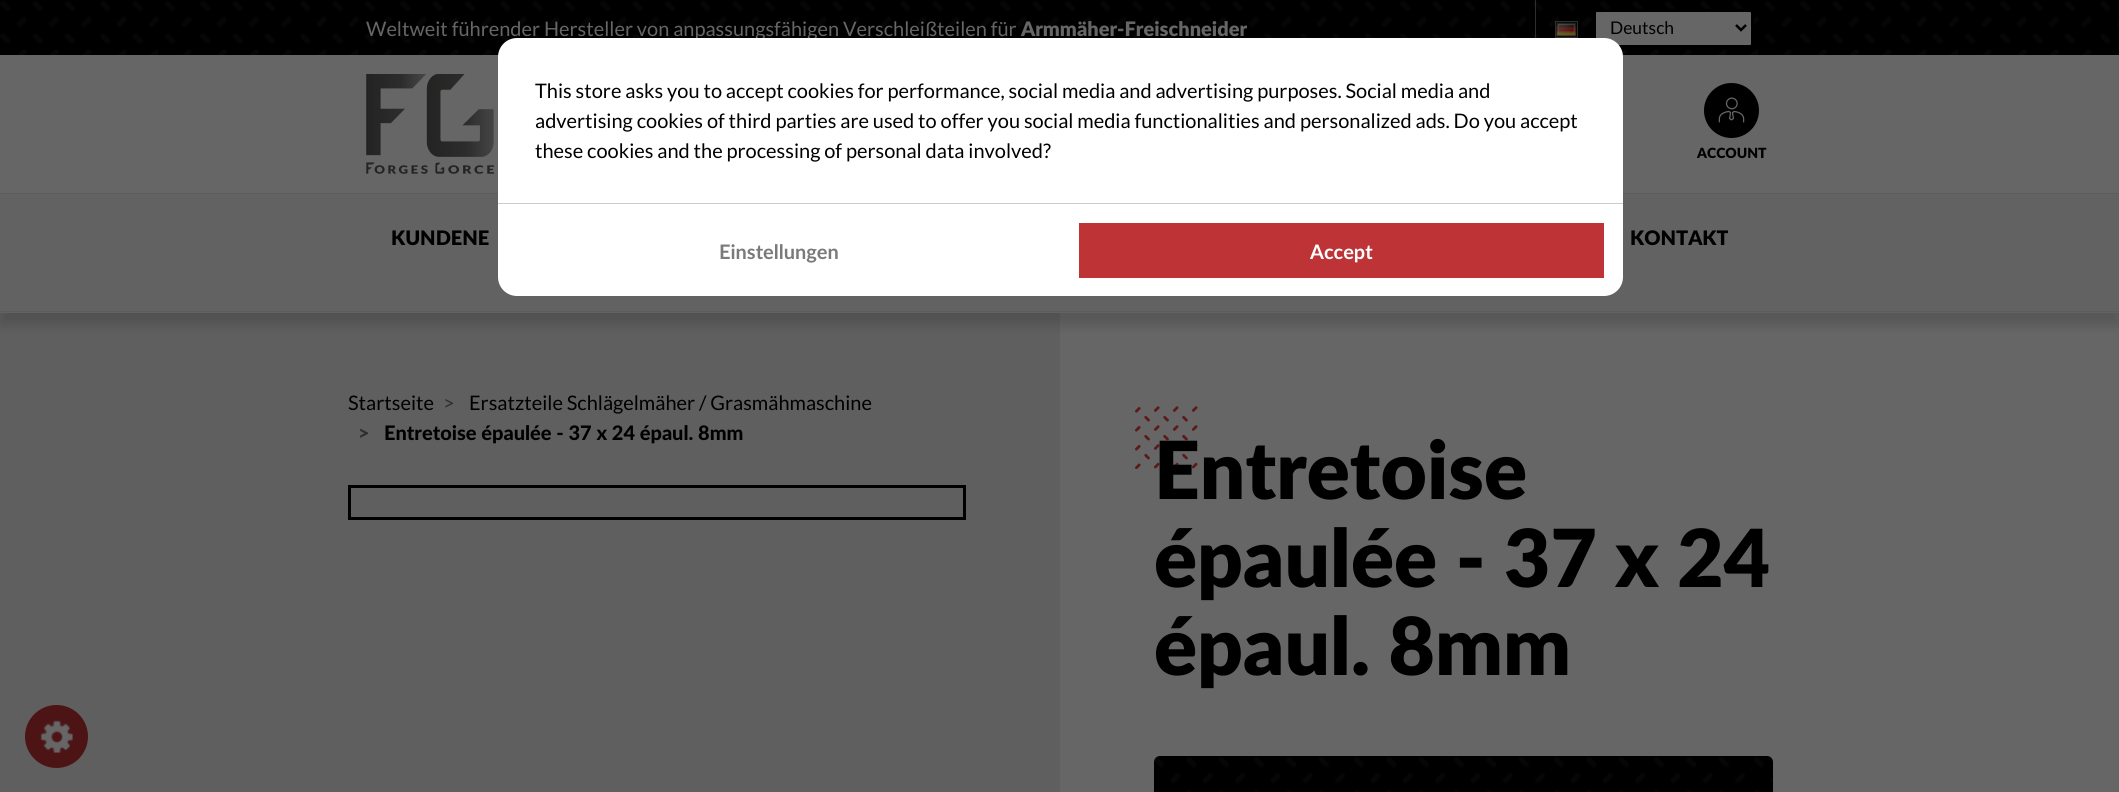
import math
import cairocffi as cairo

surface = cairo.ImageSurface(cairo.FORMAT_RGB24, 2119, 792)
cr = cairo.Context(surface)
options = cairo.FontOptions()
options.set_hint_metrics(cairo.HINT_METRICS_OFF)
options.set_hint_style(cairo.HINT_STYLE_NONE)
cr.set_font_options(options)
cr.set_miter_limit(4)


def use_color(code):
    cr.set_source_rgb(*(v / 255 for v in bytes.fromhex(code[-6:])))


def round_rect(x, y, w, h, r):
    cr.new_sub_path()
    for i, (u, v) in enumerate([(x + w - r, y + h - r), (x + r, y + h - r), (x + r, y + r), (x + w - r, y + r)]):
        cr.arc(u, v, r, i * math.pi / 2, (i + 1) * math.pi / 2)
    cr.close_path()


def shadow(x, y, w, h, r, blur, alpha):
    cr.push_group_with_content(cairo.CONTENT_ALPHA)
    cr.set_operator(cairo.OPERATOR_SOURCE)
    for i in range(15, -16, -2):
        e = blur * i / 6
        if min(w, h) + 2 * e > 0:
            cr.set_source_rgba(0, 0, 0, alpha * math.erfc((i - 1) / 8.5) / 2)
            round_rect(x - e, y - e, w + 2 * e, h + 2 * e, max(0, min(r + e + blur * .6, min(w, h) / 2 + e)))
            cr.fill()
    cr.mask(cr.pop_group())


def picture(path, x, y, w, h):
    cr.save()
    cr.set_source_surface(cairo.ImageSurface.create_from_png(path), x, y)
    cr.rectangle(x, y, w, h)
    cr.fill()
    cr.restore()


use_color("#5f5f5f")
cr.paint()
use_color("#000000")
cr.rectangle(0, 0, 2119, 55)
cr.fill()
picture("img1.png", 0, 1, 2119, 54)
cr.select_font_face("Lato")
cr.set_font_size(20)
use_color("#666666")
cr.move_to(366, 36)
cr.show_text("Weltweit führender Hersteller von anpassungsfähigen Verschleißteilen für")
cr.select_font_face("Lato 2 Black")
cr.move_to(1021, 36)
cr.show_text("Armmäher-Freischneider")
use_color("#2e2e2e")
cr.rectangle(1535, 0, 1, 38)
cr.fill()
cr.rectangle(1555.5, 21.5, 22, 16)
cr.set_line_width(1)
cr.stroke()
picture("img2.png", 1556, 22, 21, 15)
use_color("#666666")
round_rect(1594.5, 10.5, 158, 36, 2.5)
cr.fill_preserve()
use_color("#000000")
cr.set_line_width(3)
cr.stroke()
cr.new_path()
cr.move_to(1736, 25)
cr.line_to(1741, 30)
cr.line_to(1746, 25)
cr.set_line_width(2.5)
cr.stroke()
cr.select_font_face("Lato")
cr.set_font_size(17.5)
cr.move_to(1610, 34)
cr.show_text("Deutsch")
use_color("#666666")
cr.rectangle(0, 55, 2119, 138)
cr.fill()
picture("img3.png", 366, 74, 128, 100)
use_color("#000000")
cr.arc(1731.5, 110.5, 27.5, 0, 2 * math.pi)
cr.fill()
picture("img4.png", 1718, 97, 27, 26)
cr.select_font_face("Lato 2 Black")
cr.set_font_size(14)
cr.move_to(1697, 158)
cr.show_text("ACCOUNT")
use_color("#666666")
cr.rectangle(1060, 313, 1059, 479)
cr.fill()
use_color("#000000")
shadow(0, 205, 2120, 120, 0, 6, 0.15)
use_color("#636263")
cr.rectangle(0, 194, 2119, 119)
cr.fill()
use_color("#5e5b5f")
cr.rectangle(0, 193, 2119, 1)
cr.fill()
cr.rectangle(0, 311, 2119, 1)
cr.fill()
cr.set_font_size(20)
use_color("#000000")
cr.move_to(391, 245)
cr.show_text("KUNDENE")
cr.move_to(1630, 245)
cr.show_text("KONTAKT")
use_color("#ffffff")
round_rect(498, 38, 1125, 258, 19)
cr.fill()
cr.select_font_face("Lato")
use_color("#000000")
cr.move_to(535, 98)
cr.show_text("This store asks you to accept cookies for performance, social media and advertising purposes. Social media and")
cr.move_to(535, 128)
cr.show_text("advertising cookies of third parties are used to offer you social media functionalities and personalized ads. Do you accept")
cr.move_to(535, 158)
cr.show_text("these cookies and the processing of personal data involved?")
use_color("#cccccc")
cr.rectangle(498, 203, 1125, 1)
cr.fill()
cr.select_font_face("Lato", cairo.FONT_SLANT_NORMAL, cairo.FONT_WEIGHT_BOLD)
use_color("#7a7a7a")
cr.move_to(719, 259)
cr.show_text("Einstellungen")
use_color("#be3335")
cr.rectangle(1079, 223, 525, 55)
cr.fill()
use_color("#ffffff")
cr.move_to(1310, 259)
cr.show_text("Accept")
cr.select_font_face("Lato")
use_color("#000000")
cr.move_to(348, 410)
cr.show_text("Startseite")
use_color("#2b2f32")
cr.move_to(443, 410)
cr.show_text(">")
use_color("#000000")
cr.move_to(469, 410)
cr.show_text("Ersatzteile Schlägelmäher / Grasmähmaschine")
cr.select_font_face("Lato Black")
use_color("#2b2f32")
cr.move_to(358, 440)
cr.show_text(">")
use_color("#000000")
cr.move_to(384, 440)
cr.show_text("Entretoise épaulée - 37 x 24 épaul. 8mm")
cr.rectangle(349.5, 486.5, 615, 32)
cr.set_line_width(3)
cr.stroke()
picture("img5.png", 1135, 406, 63, 63)
cr.select_font_face("Lato 2 Black")
cr.set_font_size(80)
cr.move_to(1154, 499)
cr.show_text("Entretoise")
cr.move_to(1154, 587)
cr.show_text("épaulée - 37 x 24")
cr.move_to(1154, 675)
cr.show_text("épaul. 8mm")
round_rect(1154, 756, 619, 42, 6)
cr.fill()
picture("img6.png", 1154, 757, 618, 35)
use_color("#4c1415")
cr.arc(56.5, 736.5, 31.5, 0, 2 * math.pi)
cr.fill()
picture("img7.png", 40, 720, 33, 33)
surface.write_to_png("result.png")
